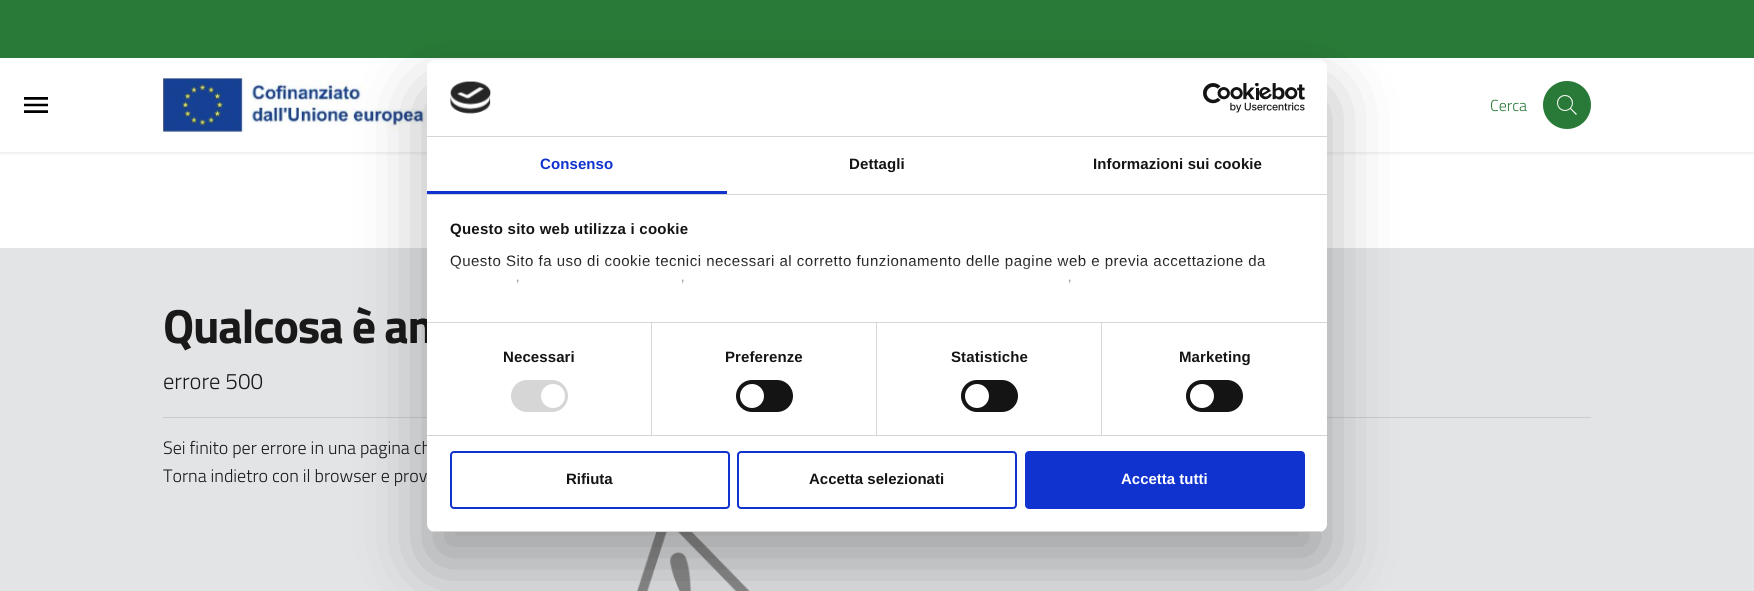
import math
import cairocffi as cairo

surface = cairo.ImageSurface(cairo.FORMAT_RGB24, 1754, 591)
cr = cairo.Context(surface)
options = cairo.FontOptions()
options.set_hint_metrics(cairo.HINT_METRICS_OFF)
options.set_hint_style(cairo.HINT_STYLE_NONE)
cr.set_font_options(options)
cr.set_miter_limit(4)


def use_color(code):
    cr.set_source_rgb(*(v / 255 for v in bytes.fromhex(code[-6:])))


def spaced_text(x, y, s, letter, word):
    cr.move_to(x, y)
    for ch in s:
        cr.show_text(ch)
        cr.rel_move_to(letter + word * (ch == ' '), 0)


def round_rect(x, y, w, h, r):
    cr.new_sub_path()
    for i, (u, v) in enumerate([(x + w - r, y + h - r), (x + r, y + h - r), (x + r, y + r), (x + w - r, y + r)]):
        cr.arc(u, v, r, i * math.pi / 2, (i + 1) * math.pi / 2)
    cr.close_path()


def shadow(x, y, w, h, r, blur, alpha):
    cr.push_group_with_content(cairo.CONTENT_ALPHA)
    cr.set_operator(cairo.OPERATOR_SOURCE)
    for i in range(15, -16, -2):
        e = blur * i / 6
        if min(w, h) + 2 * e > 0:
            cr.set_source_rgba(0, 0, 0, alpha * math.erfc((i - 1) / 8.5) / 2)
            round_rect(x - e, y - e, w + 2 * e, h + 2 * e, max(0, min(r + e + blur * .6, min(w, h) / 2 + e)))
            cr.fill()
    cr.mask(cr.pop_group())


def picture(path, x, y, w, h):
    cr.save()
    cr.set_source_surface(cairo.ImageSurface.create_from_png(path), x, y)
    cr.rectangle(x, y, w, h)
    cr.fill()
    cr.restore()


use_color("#ffffff")
cr.paint()
cr.save()
cr.rectangle(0, 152, 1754, 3)
cr.clip()
use_color("#000000")
shadow(0, 2, 1754, 152, 0, 2, 0.07)
cr.restore()
use_color("#297a38")
cr.rectangle(0, 0, 1754, 58)
cr.fill()
picture("img1.png", 24, 97, 24, 16)
picture("img2.png", 163, 78, 264, 54)
cr.select_font_face("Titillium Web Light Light")
cr.set_font_size(16)
cr.move_to(1490, 111)
cr.show_text("Cerca")
cr.new_path()
cr.arc(1567, 105, 24, 0, 2 * math.pi)
cr.fill()
picture("img3.png", 1557, 95, 20, 20)
use_color("#e3e4e6")
cr.rectangle(0, 248, 1754, 343)
cr.fill()
cr.select_font_face("Titillium Web", cairo.FONT_SLANT_NORMAL, cairo.FONT_WEIGHT_BOLD)
cr.set_font_size(48)
use_color("#19191a")
spaced_text(163, 343, "Qualcosa è an", -1.25, 0)
cr.select_font_face("Titillium Web Light Light")
cr.set_font_size(22.5)
cr.move_to(163, 389)
cr.show_text("errore 500")
use_color("#cccccc")
cr.rectangle(163, 417, 1428, 1)
cr.fill()
cr.set_font_size(18)
use_color("#19191a")
cr.move_to(163, 454)
cr.show_text("Sei finito per errore in una pagina ch")
cr.move_to(163, 482)
cr.show_text("Torna indietro con il browser e prov")
picture("img4.png", 637, 532, 113, 59)
use_color("#000000")
shadow(427, 92, 900, 472, 8, 34, 0.3)
use_color("#ffffff")
round_rect(427, 60, 900, 472, 8)
cr.fill()
use_color("#d6d6d6")
cr.rectangle(427, 136, 900, 1)
cr.fill()
picture("img5.png", 450, 81, 41, 33)
picture("img6.png", 1203, 83, 102, 30)
cr.rectangle(427, 194, 900, 1)
cr.fill()
use_color("#1032cf")
cr.rectangle(427, 191, 300, 3)
cr.fill()
cr.select_font_face("Liberation Sans", cairo.FONT_SLANT_NORMAL, cairo.FONT_WEIGHT_BOLD)
cr.set_font_size(15)
spaced_text(540, 169, "Consenso", 0.1, 0)
use_color("#141414")
spaced_text(849, 169, "Dettagli", 0.1, 0)
spaced_text(1093, 169, "Informazioni sui cookie", 0.1, 0)
use_color("#d6d6d6")
cr.rectangle(427, 322, 900, 1)
cr.fill()
use_color("#141414")
spaced_text(450, 234, "Questo sito web utilizza i cookie", 0.25, 0)
cr.select_font_face("Liberation Sans")
spaced_text(450, 266, "Questo Sito fa uso di cookie tecnici necessari al corretto funzionamento delle pagine web e previa accettazione da", 0.5, 0)
spaced_text(516, 290, "’", 0.5, 0)
spaced_text(681, 290, "’", 0.5, 0)
spaced_text(1068, 290, "’", 0.5, 0)
gradient = cairo.LinearGradient(867, 322, 867, 258)
gradient.add_color_stop_rgba(0, 1, 1, 1, 1)
gradient.add_color_stop_rgba(0.5, 1, 1, 1, 0.8)
gradient.add_color_stop_rgba(1, 1, 1, 1, 0)
cr.set_source(gradient)
cr.rectangle(450, 259, 815, 24)
cr.fill()
use_color("#d6d6d6")
cr.rectangle(427, 435, 900, 1)
cr.fill()
cr.rectangle(651, 323, 1, 112)
cr.fill()
cr.select_font_face("Liberation Sans", cairo.FONT_SLANT_NORMAL, cairo.FONT_WEIGHT_BOLD)
use_color("#141414")
spaced_text(503, 362, "Necessari", 0.1, 0)
use_color("#d6d6d6")
round_rect(511, 380, 57, 32, 16)
cr.fill()
use_color("#ffffff")
cr.arc(553, 396, 12, 0, 2 * math.pi)
cr.fill()
use_color("#d6d6d6")
cr.rectangle(876, 323, 1, 112)
cr.fill()
use_color("#141414")
spaced_text(725, 362, "Preferenze", 0.1, 0)
round_rect(736, 380, 57, 32, 16)
cr.fill()
use_color("#ffffff")
cr.arc(752, 396, 12, 0, 2 * math.pi)
cr.fill()
use_color("#d6d6d6")
cr.rectangle(1101, 323, 1, 112)
cr.fill()
use_color("#141414")
spaced_text(951, 362, "Statistiche", 0.1, 0)
round_rect(961, 380, 57, 32, 16)
cr.fill()
use_color("#ffffff")
cr.arc(977, 396, 12, 0, 2 * math.pi)
cr.fill()
use_color("#141414")
spaced_text(1179, 362, "Marketing", 0.1, 0)
round_rect(1186, 380, 57, 32, 16)
cr.fill()
use_color("#ffffff")
cr.arc(1202, 396, 12, 0, 2 * math.pi)
cr.fill()
cr.save()
round_rect(427, 60, 900, 472, 8)
cr.clip()
use_color("#d6d6d6")
cr.rectangle(427, 531, 900, 1)
cr.fill()
cr.restore()
round_rect(451, 452, 278, 56, 3)
use_color("#1032cf")
cr.stroke()
use_color("#141414")
cr.move_to(566, 484)
cr.show_text("Rifiuta")
round_rect(738, 452, 278, 56, 3)
use_color("#1032cf")
cr.stroke()
use_color("#141414")
cr.move_to(809, 484)
cr.show_text("Accetta selezionati")
use_color("#1032cf")
round_rect(1026, 452, 278, 56, 3)
cr.fill_preserve()
cr.stroke()
use_color("#ffffff")
cr.move_to(1121, 484)
cr.show_text("Accetta tutti")
surface.write_to_png("result.png")
